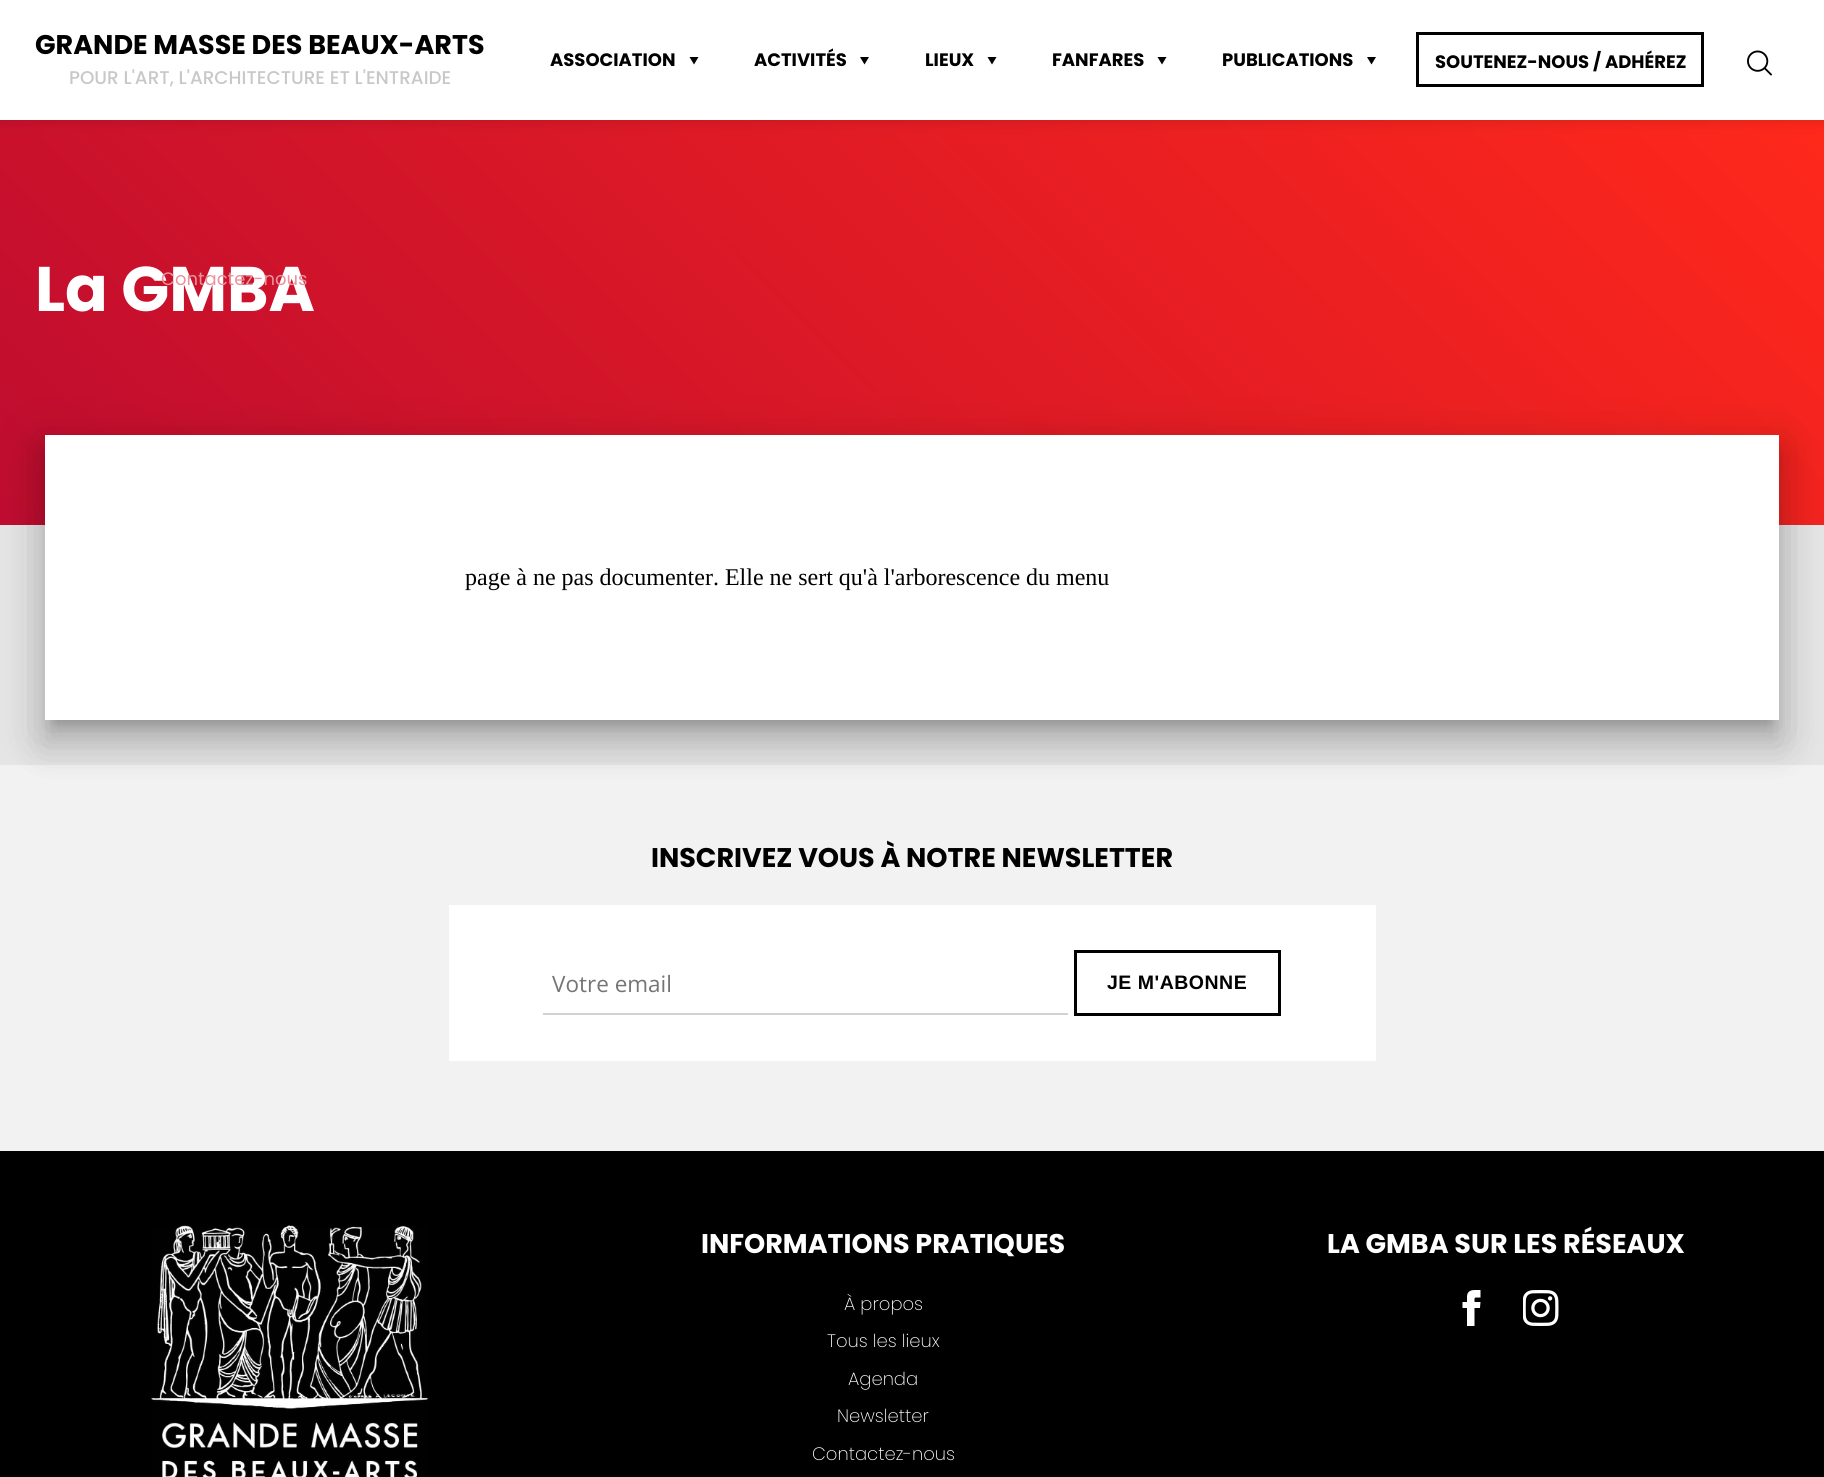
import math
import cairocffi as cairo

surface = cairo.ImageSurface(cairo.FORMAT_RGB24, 1824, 1477)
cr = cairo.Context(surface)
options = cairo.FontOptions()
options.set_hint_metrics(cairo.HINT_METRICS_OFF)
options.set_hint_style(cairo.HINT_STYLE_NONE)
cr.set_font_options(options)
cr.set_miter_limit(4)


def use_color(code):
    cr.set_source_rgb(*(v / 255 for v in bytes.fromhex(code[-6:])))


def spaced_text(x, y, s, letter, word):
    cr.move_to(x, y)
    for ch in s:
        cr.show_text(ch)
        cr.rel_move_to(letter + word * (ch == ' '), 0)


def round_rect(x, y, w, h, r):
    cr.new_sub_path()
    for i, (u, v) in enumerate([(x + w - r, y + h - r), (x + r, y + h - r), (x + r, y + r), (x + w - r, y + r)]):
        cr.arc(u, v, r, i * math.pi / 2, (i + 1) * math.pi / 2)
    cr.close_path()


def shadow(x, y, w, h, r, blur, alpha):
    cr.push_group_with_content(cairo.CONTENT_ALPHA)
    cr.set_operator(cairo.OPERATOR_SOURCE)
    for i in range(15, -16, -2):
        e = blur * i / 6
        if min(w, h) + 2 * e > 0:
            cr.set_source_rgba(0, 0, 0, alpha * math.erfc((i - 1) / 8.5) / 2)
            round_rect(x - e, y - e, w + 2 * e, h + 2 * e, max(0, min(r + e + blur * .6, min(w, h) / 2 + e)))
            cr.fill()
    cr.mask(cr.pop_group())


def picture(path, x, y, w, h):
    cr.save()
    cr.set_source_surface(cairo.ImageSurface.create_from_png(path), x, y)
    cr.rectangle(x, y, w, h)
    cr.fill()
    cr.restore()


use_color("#e5e5e5")
cr.paint()
gradient = cairo.LinearGradient(355, 880, 1469, -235)
gradient.add_color_stop_rgba(0, 0.745, 0.047, 0.188, 1)
gradient.add_color_stop_rgba(1, 1, 0.157, 0.106, 1)
cr.set_source(gradient)
cr.rectangle(0, 120, 1824, 405)
cr.fill()
use_color("#000000")
shadow(0, 0, 1824, 120, 0, 7.5, 0.15)
use_color("#ffffff")
cr.rectangle(0, 0, 1824, 120)
cr.fill()
cr.select_font_face("Poppins", cairo.FONT_SLANT_NORMAL, cairo.FONT_WEIGHT_BOLD)
cr.set_font_size(27)
use_color("#000000")
cr.move_to(35, 54)
cr.show_text("GRANDE MASSE DES BEAUX-ARTS")
cr.select_font_face("Poppins Medium")
cr.set_font_size(18.4)
use_color("#c8c8c8")
cr.move_to(69, 84)
cr.show_text("POUR L'ART, L'ARCHITECTURE ET L'ENTRAIDE")
cr.select_font_face("Poppins", cairo.FONT_SLANT_NORMAL, cairo.FONT_WEIGHT_BOLD)
cr.set_font_size(18)
use_color("#000000")
cr.move_to(550, 66)
cr.show_text("ASSOCIATION")
cr.new_path()
cr.move_to(689.5, 57)
cr.line_to(698.5, 57)
cr.line_to(694, 64.5)
cr.close_path()
cr.fill()
cr.set_font_size(63)
use_color("#ffffff")
cr.move_to(35, 311)
cr.show_text("La GMBA")
cr.select_font_face("Poppins")
cr.set_font_size(18)
use_color("#e8939e")
cr.move_to(161, 285)
cr.show_text("Contactez-nous")
cr.select_font_face("Poppins", cairo.FONT_SLANT_NORMAL, cairo.FONT_WEIGHT_BOLD)
use_color("#000000")
cr.move_to(754, 66)
cr.show_text("ACTIVITÉS")
cr.new_path()
cr.move_to(860, 57)
cr.line_to(869, 57)
cr.line_to(864.5, 64.5)
cr.close_path()
cr.fill()
cr.move_to(925, 66)
cr.show_text("LIEUX")
cr.new_path()
cr.move_to(987.5, 57)
cr.line_to(996.5, 57)
cr.line_to(992, 64.5)
cr.close_path()
cr.fill()
cr.move_to(1052, 66)
cr.show_text("FANFARES")
cr.new_path()
cr.move_to(1157.5, 57)
cr.line_to(1166.5, 57)
cr.line_to(1162, 64.5)
cr.close_path()
cr.fill()
cr.move_to(1222, 66)
cr.show_text("PUBLICATIONS")
cr.new_path()
cr.move_to(1367, 57)
cr.line_to(1376, 57)
cr.line_to(1371.5, 64.5)
cr.close_path()
cr.fill()
cr.rectangle(1417.5, 33.5, 285, 52)
cr.set_line_width(3)
cr.stroke()
cr.move_to(1435, 68)
cr.show_text("SOUTENEZ-NOUS / ADHÉREZ")
picture("img1.png", 1747, 50, 25, 26)
use_color("#000000")
shadow(53, 455, 1719, 270, 0, 7.5, 0.2)
use_color("#f2f2f2")
cr.rectangle(0, 765, 1824, 386)
cr.fill()
use_color("#000000")
shadow(38, 437, 1749, 300, 0, 22.5, 0.12)
shadow(42, 456, 1740, 291, 0, 18, 0.14)
use_color("#ffffff")
cr.rectangle(45, 435, 1734, 285)
cr.fill()
cr.select_font_face("Liberation Serif")
cr.set_font_size(24)
use_color("#000000")
cr.move_to(465, 585)
cr.show_text("page à ne pas documenter. Elle ne sert qu'à l'arborescence du menu")
cr.select_font_face("Poppins", cairo.FONT_SLANT_NORMAL, cairo.FONT_WEIGHT_BOLD)
cr.set_font_size(27)
cr.move_to(651, 867)
cr.show_text("INSCRIVEZ VOUS À NOTRE NEWSLETTER")
use_color("#ffffff")
cr.rectangle(449, 905, 927, 156)
cr.fill()
use_color("#d2d2d2")
cr.rectangle(543, 1013, 525, 2)
cr.fill()
cr.select_font_face("Open Sans")
cr.set_font_size(22.5)
use_color("#757575")
cr.move_to(552, 992)
cr.show_text("Votre email")
cr.rectangle(1075.5, 951.5, 204, 63)
use_color("#000000")
cr.stroke()
cr.select_font_face("Liberation Sans", cairo.FONT_SLANT_NORMAL, cairo.FONT_WEIGHT_BOLD)
cr.set_font_size(19.5)
spaced_text(1107, 989, "JE M'ABONNE", 0.5, 0)
cr.rectangle(0, 1151, 1824, 326)
cr.fill()
picture("img2.png", 151, 1225, 278, 252)
cr.select_font_face("Poppins", cairo.FONT_SLANT_NORMAL, cairo.FONT_WEIGHT_BOLD)
cr.set_font_size(27)
use_color("#ffffff")
cr.move_to(701, 1253)
cr.show_text("INFORMATIONS PRATIQUES")
cr.select_font_face("Poppins ExtraLight")
cr.set_font_size(18)
cr.move_to(844, 1310)
cr.show_text("À propos")
cr.move_to(827, 1347)
cr.show_text("Tous les lieux")
cr.move_to(848, 1385)
cr.show_text("Agenda")
cr.move_to(837, 1422)
cr.show_text("Newsletter")
cr.move_to(812, 1460)
cr.show_text("Contactez-nous")
cr.select_font_face("Poppins", cairo.FONT_SLANT_NORMAL, cairo.FONT_WEIGHT_BOLD)
cr.set_font_size(27)
cr.move_to(1327, 1253)
cr.show_text("LA GMBA SUR LES RÉSEAUX")
picture("img3.png", 1462, 1290, 19, 36)
picture("img4.png", 1523, 1290, 36, 36)
surface.write_to_png("result.png")
